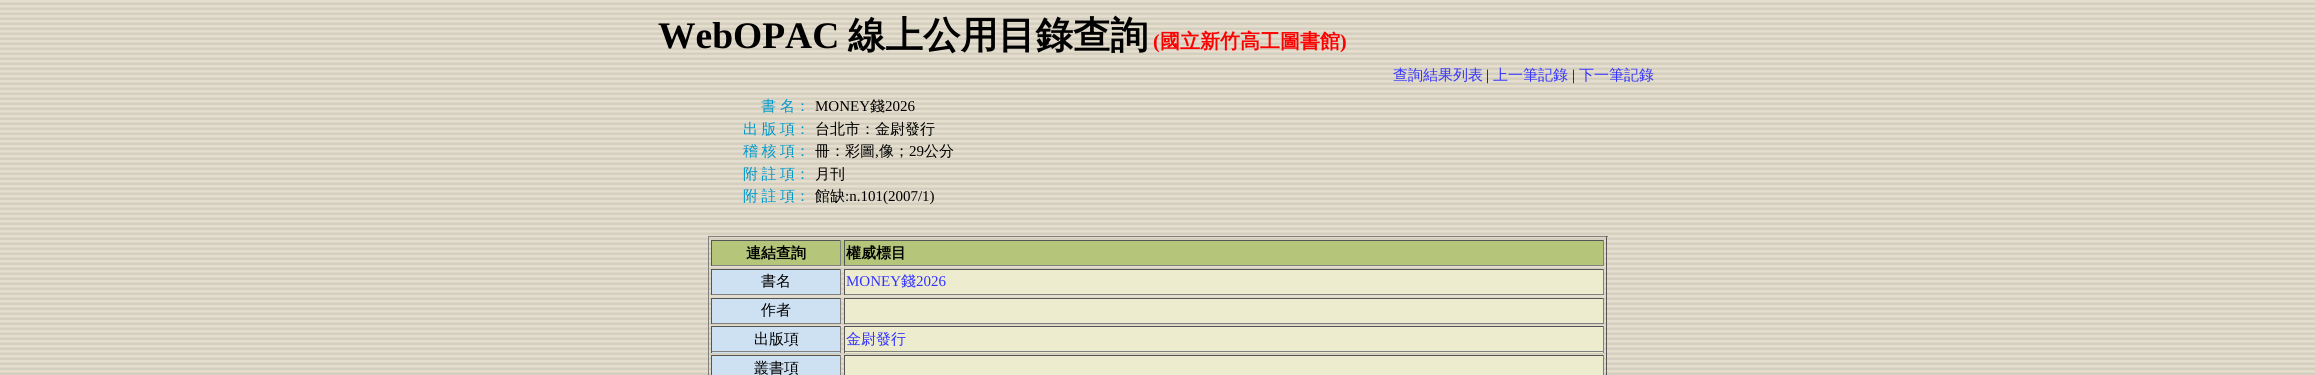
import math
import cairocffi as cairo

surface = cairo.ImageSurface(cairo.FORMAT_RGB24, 2315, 375)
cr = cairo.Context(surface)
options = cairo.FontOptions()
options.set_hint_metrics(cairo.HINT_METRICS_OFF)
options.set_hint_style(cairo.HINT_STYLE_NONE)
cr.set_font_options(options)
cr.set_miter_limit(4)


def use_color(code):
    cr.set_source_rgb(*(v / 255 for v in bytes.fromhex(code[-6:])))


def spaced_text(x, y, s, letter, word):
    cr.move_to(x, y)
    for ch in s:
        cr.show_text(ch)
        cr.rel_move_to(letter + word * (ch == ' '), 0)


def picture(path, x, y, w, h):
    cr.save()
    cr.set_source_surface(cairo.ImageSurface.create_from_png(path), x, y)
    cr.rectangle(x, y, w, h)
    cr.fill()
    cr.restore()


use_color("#ffffff")
cr.paint()
picture("img1.png", 0, 0, 2315, 375)
cr.select_font_face("Liberation Serif", cairo.FONT_SLANT_NORMAL, cairo.FONT_WEIGHT_BOLD)
cr.set_font_size(37.5)
use_color("#000000")
cr.move_to(658, 48)
cr.show_text("WebOPAC")
cr.select_font_face("WenQuanYi Zen Hei", cairo.FONT_SLANT_NORMAL, cairo.FONT_WEIGHT_BOLD)
cr.move_to(848, 48)
cr.show_text("線上公用目錄查詢")
cr.select_font_face("Liberation Serif", cairo.FONT_SLANT_NORMAL, cairo.FONT_WEIGHT_BOLD)
cr.set_font_size(20)
use_color("#ff0000")
cr.move_to(1153, 48)
cr.show_text("(")
cr.select_font_face("WenQuanYi Zen Hei", cairo.FONT_SLANT_NORMAL, cairo.FONT_WEIGHT_BOLD)
cr.move_to(1160, 48)
cr.show_text("國立新竹高工圖書館")
cr.select_font_face("Liberation Serif", cairo.FONT_SLANT_NORMAL, cairo.FONT_WEIGHT_BOLD)
cr.move_to(1340, 48)
cr.show_text(")")
cr.select_font_face("WenQuanYi Zen Hei Medium")
cr.set_font_size(15)
use_color("#3333ff")
cr.move_to(1393, 80)
cr.show_text("查詢結果列表")
cr.select_font_face("Liberation Serif")
use_color("#000000")
cr.move_to(1486, 80)
cr.show_text("|")
cr.select_font_face("WenQuanYi Zen Hei Medium")
use_color("#3333ff")
cr.move_to(1493, 80)
cr.show_text("上一筆記錄")
cr.select_font_face("Liberation Serif")
use_color("#000000")
cr.move_to(1572, 80)
cr.show_text("|")
cr.select_font_face("WenQuanYi Zen Hei Medium")
use_color("#3333ff")
cr.move_to(1579, 80)
cr.show_text("下一筆記錄")
use_color("#0099cc")
cr.move_to(761, 111)
cr.show_text("書")
cr.move_to(780, 111)
cr.show_text("名：")
cr.select_font_face("Liberation Serif")
use_color("#000000")
cr.move_to(815, 111)
cr.show_text("MONEY")
cr.select_font_face("WenQuanYi Zen Hei Medium")
cr.move_to(870, 111)
cr.show_text("錢")
cr.select_font_face("Liberation Serif")
cr.move_to(885, 111)
cr.show_text("2026")
cr.select_font_face("WenQuanYi Zen Hei Medium")
use_color("#0099cc")
spaced_text(743, 134, "出 版 項：", 0, -1)
use_color("#000000")
cr.move_to(815, 134)
cr.show_text("台北市：金尉發行")
use_color("#0099cc")
spaced_text(743, 156, "稽 核 項：", 0, -1)
use_color("#000000")
cr.move_to(815, 156)
cr.show_text("冊：彩圖")
cr.select_font_face("Liberation Serif")
cr.move_to(875, 156)
cr.show_text(",")
cr.select_font_face("WenQuanYi Zen Hei Medium")
cr.move_to(879, 156)
cr.show_text("像；")
cr.select_font_face("Liberation Serif")
cr.move_to(909, 156)
cr.show_text("29")
cr.select_font_face("WenQuanYi Zen Hei Medium")
cr.move_to(924, 156)
cr.show_text("公分")
use_color("#0099cc")
spaced_text(743, 179, "附 註 項：", 0, -1)
use_color("#000000")
cr.move_to(815, 179)
cr.show_text("月刊")
use_color("#0099cc")
spaced_text(743, 201, "附 註 項：", 0, -1)
use_color("#000000")
cr.move_to(815, 201)
cr.show_text("館缺")
cr.select_font_face("Liberation Serif")
cr.move_to(845, 201)
cr.show_text(":n.101(2007/1)")
use_color("#808080")
cr.rectangle(708, 236, 900, 1)
cr.fill()
use_color("#555555")
cr.rectangle(1606, 236, 1, 139)
cr.fill()
use_color("#808080")
cr.rectangle(708, 236, 1, 139)
cr.fill()
use_color("#b5c67b")
cr.rectangle(712, 240, 891, 26)
cr.fill()
use_color("#555555")
cr.rectangle(711, 240, 130, 1)
cr.fill()
use_color("#808080")
cr.rectangle(840, 240, 1, 26)
cr.fill()
cr.rectangle(711, 265, 130, 1)
cr.fill()
use_color("#555555")
cr.rectangle(711, 240, 1, 26)
cr.fill()
cr.select_font_face("WenQuanYi Zen Hei", cairo.FONT_SLANT_NORMAL, cairo.FONT_WEIGHT_BOLD)
use_color("#000000")
cr.move_to(746, 258)
cr.show_text("連結查詢")
use_color("#555555")
cr.rectangle(844, 240, 760, 1)
cr.fill()
use_color("#808080")
cr.rectangle(1603, 240, 1, 26)
cr.fill()
cr.rectangle(844, 265, 760, 1)
cr.fill()
use_color("#555555")
cr.rectangle(844, 240, 1, 26)
cr.fill()
use_color("#000000")
cr.move_to(846, 258)
cr.show_text("權威標目")
use_color("#cee1f2")
cr.rectangle(712, 270, 128, 24)
cr.fill()
use_color("#555555")
cr.rectangle(711, 269, 130, 1)
cr.fill()
use_color("#808080")
cr.rectangle(840, 269, 1, 26)
cr.fill()
cr.rectangle(711, 294, 130, 1)
cr.fill()
use_color("#555555")
cr.rectangle(711, 269, 1, 26)
cr.fill()
cr.select_font_face("WenQuanYi Zen Hei Medium")
use_color("#000000")
cr.move_to(761, 286)
cr.show_text("書名")
use_color("#edeccf")
cr.rectangle(845, 270, 758, 24)
cr.fill()
use_color("#555555")
cr.rectangle(844, 269, 760, 1)
cr.fill()
use_color("#808080")
cr.rectangle(1603, 269, 1, 26)
cr.fill()
cr.rectangle(844, 294, 760, 1)
cr.fill()
use_color("#555555")
cr.rectangle(844, 269, 1, 26)
cr.fill()
cr.select_font_face("Liberation Serif")
use_color("#3333ff")
cr.move_to(846, 286)
cr.show_text("MONEY")
cr.select_font_face("WenQuanYi Zen Hei Medium")
cr.move_to(901, 286)
cr.show_text("錢")
cr.select_font_face("Liberation Serif")
cr.move_to(916, 286)
cr.show_text("2026")
use_color("#cee1f2")
cr.rectangle(712, 299, 128, 24)
cr.fill()
use_color("#555555")
cr.rectangle(711, 298, 130, 1)
cr.fill()
use_color("#808080")
cr.rectangle(840, 298, 1, 26)
cr.fill()
cr.rectangle(711, 323, 130, 1)
cr.fill()
use_color("#555555")
cr.rectangle(711, 298, 1, 26)
cr.fill()
cr.select_font_face("WenQuanYi Zen Hei Medium")
use_color("#000000")
cr.move_to(761, 315)
cr.show_text("作者")
use_color("#edeccf")
cr.rectangle(845, 299, 758, 24)
cr.fill()
use_color("#555555")
cr.rectangle(844, 298, 760, 1)
cr.fill()
use_color("#808080")
cr.rectangle(1603, 298, 1, 26)
cr.fill()
cr.rectangle(844, 323, 760, 1)
cr.fill()
use_color("#555555")
cr.rectangle(844, 298, 1, 26)
cr.fill()
use_color("#cee1f2")
cr.rectangle(712, 327, 128, 26)
cr.fill()
use_color("#555555")
cr.rectangle(711, 326, 130, 1)
cr.fill()
use_color("#808080")
cr.rectangle(840, 326, 1, 27)
cr.fill()
cr.rectangle(711, 351, 130, 1)
cr.fill()
use_color("#555555")
cr.rectangle(711, 326, 1, 27)
cr.fill()
use_color("#000000")
cr.move_to(754, 344)
cr.show_text("出版項")
use_color("#edeccf")
cr.rectangle(845, 327, 758, 26)
cr.fill()
use_color("#555555")
cr.rectangle(844, 326, 760, 1)
cr.fill()
use_color("#808080")
cr.rectangle(1603, 326, 1, 27)
cr.fill()
cr.rectangle(844, 351, 760, 1)
cr.fill()
use_color("#555555")
cr.rectangle(844, 326, 1, 27)
cr.fill()
use_color("#3333ff")
cr.move_to(846, 344)
cr.show_text("金尉發行")
use_color("#cee1f2")
cr.rectangle(712, 356, 128, 19)
cr.fill()
use_color("#555555")
cr.rectangle(711, 355, 130, 1)
cr.fill()
use_color("#808080")
cr.rectangle(840, 355, 1, 20)
cr.fill()
use_color("#555555")
cr.rectangle(711, 355, 1, 20)
cr.fill()
use_color("#000000")
cr.move_to(754, 373)
cr.show_text("叢書項")
use_color("#edeccf")
cr.rectangle(845, 356, 758, 19)
cr.fill()
use_color("#555555")
cr.rectangle(844, 355, 760, 1)
cr.fill()
use_color("#808080")
cr.rectangle(1603, 355, 1, 20)
cr.fill()
use_color("#555555")
cr.rectangle(844, 355, 1, 20)
cr.fill()
surface.write_to_png("result.png")
